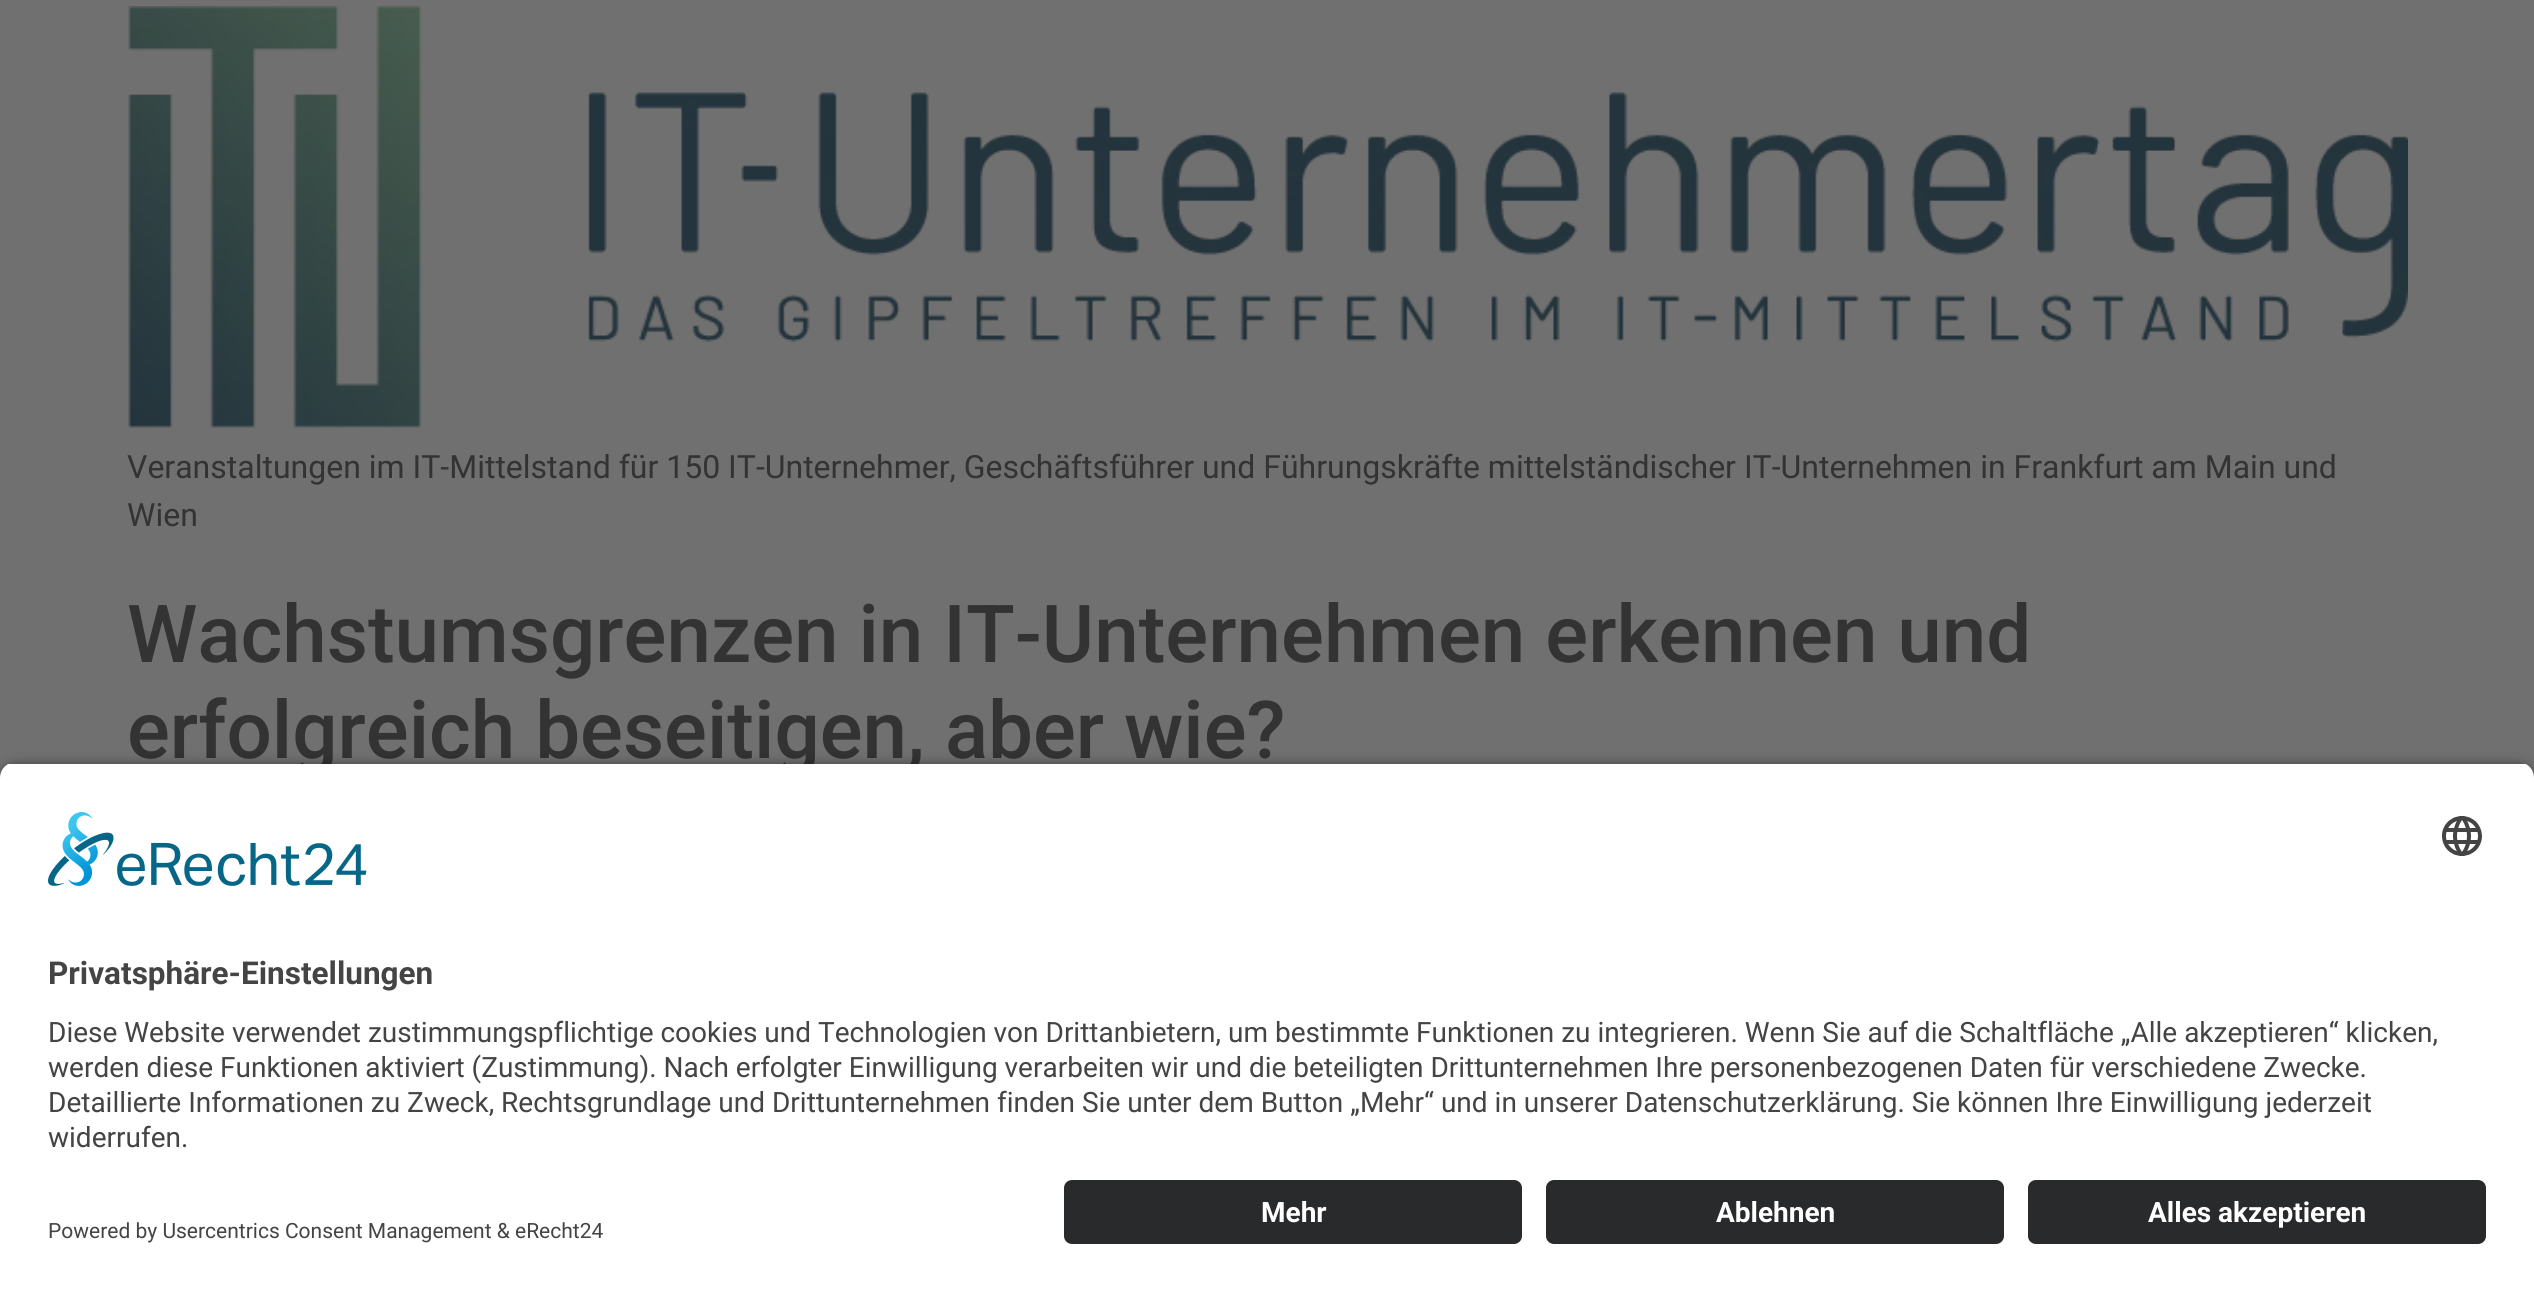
import math
import cairocffi as cairo

surface = cairo.ImageSurface(cairo.FORMAT_RGB24, 2534, 1292)
cr = cairo.Context(surface)
options = cairo.FontOptions()
options.set_hint_metrics(cairo.HINT_METRICS_OFF)
options.set_hint_style(cairo.HINT_STYLE_NONE)
cr.set_font_options(options)
cr.set_miter_limit(4)


def use_color(code):
    cr.set_source_rgb(*(v / 255 for v in bytes.fromhex(code[-6:])))


def round_rect(x, y, w, h, r):
    cr.new_sub_path()
    for i, (u, v) in enumerate([(x + w - r, y + h - r), (x + r, y + h - r), (x + r, y + r), (x + w - r, y + r)]):
        cr.arc(u, v, r, i * math.pi / 2, (i + 1) * math.pi / 2)
    cr.close_path()


def shadow(x, y, w, h, r, blur, alpha):
    cr.push_group_with_content(cairo.CONTENT_ALPHA)
    cr.set_operator(cairo.OPERATOR_SOURCE)
    for i in range(15, -16, -2):
        e = blur * i / 6
        if min(w, h) + 2 * e > 0:
            cr.set_source_rgba(0, 0, 0, alpha * math.erfc((i - 1) / 8.5) / 2)
            round_rect(x - e, y - e, w + 2 * e, h + 2 * e, max(0, min(r + e + blur * .6, min(w, h) / 2 + e)))
            cr.fill()
    cr.mask(cr.pop_group())


def picture(path, x, y, w, h):
    cr.save()
    cr.set_source_surface(cairo.ImageSurface.create_from_png(path), x, y)
    cr.rectangle(x, y, w, h)
    cr.fill()
    cr.restore()


use_color("#707070")
cr.paint()
picture("img1.png", 128, 6, 2280, 422)
cr.select_font_face("Roboto")
cr.set_font_size(32)
use_color("#333333")
cr.move_to(127, 478)
cr.show_text("Veranstaltungen im IT-Mittelstand für 150 IT-Unternehmer, Geschäftsführer und Führungskräfte mittelständischer IT-Unternehmen in Frankfurt am Main und")
cr.move_to(127, 526)
cr.show_text("Wien")
cr.select_font_face("Roboto Medium")
cr.set_font_size(80)
cr.move_to(127, 662)
cr.show_text("Wachstumsgrenzen in IT-Unternehmen erkennen und")
cr.move_to(127, 758)
cr.show_text("erfolgreich beseitigen, aber wie?")
use_color("#000000")
shadow(0, 768, 2534, 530, 16, 7, 0.8)
cr.save()
cr.new_path()
cr.move_to(16, 762)
cr.line_to(2518, 762)
cr.curve_to(2527, 762, 2534, 769, 2534, 778)
cr.line_to(2534, 1164)
cr.line_to(0, 1164)
cr.line_to(0, 778)
cr.curve_to(0, 769, 7, 762, 16, 762)
cr.close_path()
cr.clip()
use_color("#ffffff")
cr.rectangle(0, 764, 2534, 400)
cr.fill()
cr.restore()
picture("img2.png", 48, 812, 319, 74)
picture("img3.png", 2442, 816, 40, 40)
cr.select_font_face("Roboto", cairo.FONT_SLANT_NORMAL, cairo.FONT_WEIGHT_BOLD)
cr.set_font_size(31.5)
use_color("#444444")
cr.move_to(48, 984)
cr.show_text("Privatsphäre-Einstellungen")
cr.select_font_face("Roboto")
cr.set_font_size(28)
cr.move_to(48, 1042)
cr.show_text("Diese Website verwendet zustimmungspflichtige cookies und Technologien von Drittanbietern, um bestimmte Funktionen zu integrieren. Wenn Sie auf die Schaltfläche „Alle akzeptieren“ klicken,")
cr.move_to(48, 1077)
cr.show_text("werden diese Funktionen aktiviert (Zustimmung). Nach erfolgter Einwilligung verarbeiten wir und die beteiligten Drittunternehmen Ihre personenbezogenen Daten für verschiedene Zwecke.")
cr.move_to(48, 1112)
cr.show_text("Detaillierte Informationen zu Zweck, Rechtsgrundlage und Drittunternehmen finden Sie unter dem Button „Mehr“ und in unserer Datenschutzerklärung. Sie können Ihre Einwilligung jederzeit")
cr.move_to(48, 1147)
cr.show_text("widerrufen.")
use_color("#ffffff")
cr.rectangle(0, 1164, 2534, 128)
cr.fill()
use_color("#292a2b")
round_rect(1064, 1180, 458, 64, 8)
cr.fill()
cr.select_font_face("Roboto", cairo.FONT_SLANT_NORMAL, cairo.FONT_WEIGHT_BOLD)
use_color("#ffffff")
cr.move_to(1261, 1222)
cr.show_text("Mehr")
use_color("#292a2b")
round_rect(1546, 1180, 458, 64, 8)
cr.fill()
use_color("#ffffff")
cr.move_to(1716, 1222)
cr.show_text("Ablehnen")
use_color("#292a2b")
round_rect(2028, 1180, 458, 64, 8)
cr.fill()
use_color("#ffffff")
cr.move_to(2148, 1222)
cr.show_text("Alles akzeptieren")
cr.select_font_face("Roboto")
cr.set_font_size(21)
use_color("#444444")
cr.move_to(48, 1238)
cr.show_text("Powered by Usercentrics Consent Management & eRecht24")
surface.write_to_png("result.png")
